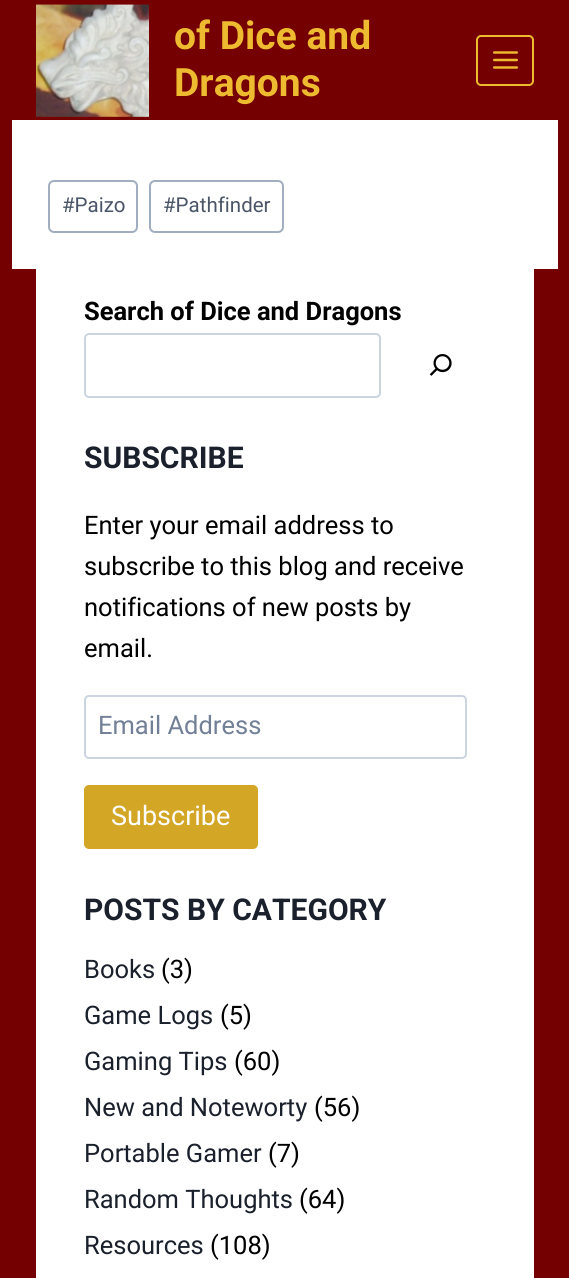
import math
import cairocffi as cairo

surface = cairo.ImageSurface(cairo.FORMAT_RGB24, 569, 1278)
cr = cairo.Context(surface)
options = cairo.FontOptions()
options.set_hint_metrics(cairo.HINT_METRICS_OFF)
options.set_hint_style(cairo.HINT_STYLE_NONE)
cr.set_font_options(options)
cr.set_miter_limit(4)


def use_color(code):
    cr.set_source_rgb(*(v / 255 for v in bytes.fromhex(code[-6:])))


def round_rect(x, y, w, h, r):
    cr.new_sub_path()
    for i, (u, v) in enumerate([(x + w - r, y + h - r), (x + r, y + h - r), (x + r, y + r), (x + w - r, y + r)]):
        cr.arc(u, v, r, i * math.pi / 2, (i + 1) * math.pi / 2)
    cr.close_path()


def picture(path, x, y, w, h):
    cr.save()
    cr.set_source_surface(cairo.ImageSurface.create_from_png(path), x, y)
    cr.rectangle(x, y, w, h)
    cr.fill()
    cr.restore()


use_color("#740001")
cr.paint()
picture("img1.png", 36, 4, 113, 113)
cr.select_font_face("Roboto", cairo.FONT_SLANT_NORMAL, cairo.FONT_WEIGHT_BOLD)
cr.set_font_size(39)
use_color("#eeba30")
cr.move_to(174, 49)
cr.show_text("of Dice and")
cr.move_to(174, 96)
cr.show_text("Dragons")
round_rect(477, 36, 56, 49, 4)
cr.stroke()
picture("img2.png", 493, 51, 25, 18)
use_color("#ffffff")
cr.rectangle(12, 120, 546, 149)
cr.fill()
round_rect(49, 181, 88, 51, 5)
use_color("#a0aec0")
cr.stroke()
cr.select_font_face("Roboto")
cr.set_font_size(20.5)
use_color("#4a5568")
cr.move_to(62, 212)
cr.show_text("#Paizo")
round_rect(150, 181, 133, 51, 5)
use_color("#a0aec0")
cr.stroke()
use_color("#4a5568")
cr.move_to(163, 212)
cr.show_text("#Pathfinder")
use_color("#ffffff")
cr.rectangle(36, 269, 498, 1009)
cr.fill()
cr.select_font_face("Roboto", cairo.FONT_SLANT_NORMAL, cairo.FONT_WEIGHT_BOLD)
cr.set_font_size(25.5)
use_color("#000000")
cr.move_to(84, 320)
cr.show_text("Search of Dice and Dragons")
round_rect(85, 334, 295, 63, 4)
use_color("#cbd5e0")
cr.stroke()
picture("img3.png", 429, 354, 23, 22)
cr.set_font_size(30)
use_color("#1a202c")
cr.move_to(84, 468)
cr.show_text("SUBSCRIBE")
cr.select_font_face("Roboto")
cr.set_font_size(25.5)
use_color("#000000")
cr.move_to(84, 534)
cr.show_text("Enter your email address to")
cr.move_to(84, 575)
cr.show_text("subscribe to this blog and receive")
cr.move_to(84, 616)
cr.show_text("notifications of new posts by")
cr.move_to(84, 657)
cr.show_text("email.")
round_rect(85, 696, 381, 62, 4)
use_color("#cbd5e0")
cr.stroke()
use_color("#718096")
cr.move_to(98, 734)
cr.show_text("Email Address")
use_color("#d3a625")
round_rect(84, 785, 174, 64, 5)
cr.fill()
cr.set_font_size(27)
use_color("#ffffff")
cr.move_to(111, 825)
cr.show_text("Subscribe")
cr.select_font_face("Roboto", cairo.FONT_SLANT_NORMAL, cairo.FONT_WEIGHT_BOLD)
cr.set_font_size(30)
use_color("#1a202c")
cr.move_to(84, 920)
cr.show_text("POSTS BY CATEGORY")
cr.select_font_face("Roboto")
cr.set_font_size(25.5)
cr.move_to(84, 978)
cr.show_text("Books")
use_color("#000000")
cr.move_to(161, 978)
cr.show_text("(3)")
use_color("#1a202c")
cr.move_to(84, 1024)
cr.show_text("Game Logs")
use_color("#000000")
cr.move_to(220, 1024)
cr.show_text("(5)")
use_color("#1a202c")
cr.move_to(84, 1070)
cr.show_text("Gaming Tips")
use_color("#000000")
cr.move_to(234, 1070)
cr.show_text("(60)")
use_color("#1a202c")
cr.move_to(84, 1116)
cr.show_text("New and Noteworty")
use_color("#000000")
cr.move_to(314, 1116)
cr.show_text("(56)")
use_color("#1a202c")
cr.move_to(84, 1162)
cr.show_text("Portable Gamer")
use_color("#000000")
cr.move_to(268, 1162)
cr.show_text("(7)")
use_color("#1a202c")
cr.move_to(84, 1208)
cr.show_text("Random Thoughts")
use_color("#000000")
cr.move_to(299, 1208)
cr.show_text("(64)")
use_color("#1a202c")
cr.move_to(84, 1254)
cr.show_text("Resources")
use_color("#000000")
cr.move_to(210, 1254)
cr.show_text("(108)")
surface.write_to_png("result.png")
